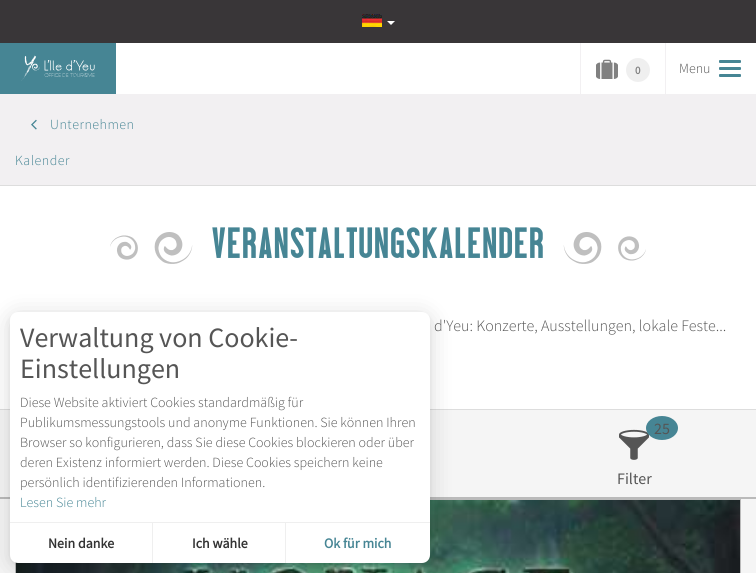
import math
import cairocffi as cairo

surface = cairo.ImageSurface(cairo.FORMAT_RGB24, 756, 573)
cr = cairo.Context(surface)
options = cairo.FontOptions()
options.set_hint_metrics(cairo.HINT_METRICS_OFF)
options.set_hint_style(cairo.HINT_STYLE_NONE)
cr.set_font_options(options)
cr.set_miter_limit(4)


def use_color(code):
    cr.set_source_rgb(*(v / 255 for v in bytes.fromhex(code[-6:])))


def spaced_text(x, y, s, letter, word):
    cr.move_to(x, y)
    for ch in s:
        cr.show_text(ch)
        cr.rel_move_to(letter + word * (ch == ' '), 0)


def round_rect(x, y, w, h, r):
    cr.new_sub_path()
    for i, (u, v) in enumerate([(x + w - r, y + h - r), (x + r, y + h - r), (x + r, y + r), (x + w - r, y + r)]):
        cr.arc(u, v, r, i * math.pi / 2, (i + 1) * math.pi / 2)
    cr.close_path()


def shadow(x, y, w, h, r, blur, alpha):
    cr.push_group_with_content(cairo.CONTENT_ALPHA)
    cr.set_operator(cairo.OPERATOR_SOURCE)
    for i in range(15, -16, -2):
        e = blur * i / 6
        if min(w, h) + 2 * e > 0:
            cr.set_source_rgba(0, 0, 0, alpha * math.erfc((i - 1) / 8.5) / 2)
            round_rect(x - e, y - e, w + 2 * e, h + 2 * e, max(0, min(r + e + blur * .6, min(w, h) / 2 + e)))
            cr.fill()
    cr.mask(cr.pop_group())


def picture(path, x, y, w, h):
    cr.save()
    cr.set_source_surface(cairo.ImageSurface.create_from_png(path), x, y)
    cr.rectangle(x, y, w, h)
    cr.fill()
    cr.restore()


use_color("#ffffff")
cr.paint()
use_color("#393638")
cr.rectangle(0, 0, 756, 43)
cr.fill()
picture("img1.png", 362, 14, 20, 13)
use_color("#ffffff")
cr.new_path()
cr.move_to(387, 21)
cr.line_to(395, 21)
cr.line_to(391, 25)
cr.close_path()
cr.fill()
use_color("#f2f0f2")
cr.rectangle(665, 43, 1, 51)
cr.fill()
cr.rectangle(580, 43, 1, 51)
cr.fill()
picture("img2.png", 596, 59, 22, 20)
use_color("#efefef")
cr.arc(638, 70, 12, 0, 2 * math.pi)
cr.fill()
cr.select_font_face("Source Sans Pro", cairo.FONT_SLANT_NORMAL, cairo.FONT_WEIGHT_BOLD)
cr.set_font_size(11)
use_color("#808080")
cr.move_to(635, 74)
cr.show_text("0")
use_color("#468594")
cr.rectangle(0, 43, 116, 51)
cr.fill()
picture("img3.png", 21, 55, 74, 26)
round_rect(719, 60, 22, 3, 1)
cr.fill()
cr.select_font_face("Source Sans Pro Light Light")
cr.set_font_size(14)
use_color("#555555")
cr.move_to(679, 73)
cr.show_text("Menu")
use_color("#468594")
round_rect(719, 67, 22, 3, 1)
cr.fill()
round_rect(719, 74, 22, 3, 1)
cr.fill()
use_color("#f5f5f5")
cr.rectangle(0, 410, 756, 163)
cr.fill()
use_color("#f2f0f2")
cr.rectangle(0, 94, 756, 91)
cr.fill()
picture("img4.png", 31, 119, 6, 11)
use_color("#468594")
spaced_text(50, 129, "Unternehmen", 0.5, 0)
spaced_text(15, 165, "Kalender", 0.5, 0)
use_color("#dddddd")
cr.rectangle(0, 185, 756, 1)
cr.fill()
cr.rectangle(0, 409, 756, 1)
cr.fill()
picture("img5.png", 110, 232, 83, 32)
cr.select_font_face("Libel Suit", cairo.FONT_SLANT_NORMAL, cairo.FONT_WEIGHT_BOLD)
cr.set_font_size(41)
use_color("#468594")
spaced_text(211, 258, "VERANSTALTUNGSKALENDER", 1.6, 0)
picture("img6.png", 563, 232, 83, 32)
cr.select_font_face("Source Sans Pro Light Light")
cr.set_font_size(16)
use_color("#555555")
cr.move_to(434, 331)
cr.show_text("d'Yeu: Konzerte, Ausstellungen, lokale Feste...")
use_color("#bababa")
cr.rectangle(0, 497, 756, 2)
cr.fill()
picture("img7.png", 619, 429, 30, 31)
use_color("#468594")
cr.new_path()
cr.move_to(662, 416)
cr.curve_to(671, 416, 678, 421.5, 678, 428)
cr.curve_to(678, 434.5, 671, 440, 662, 440)
cr.curve_to(653, 440, 646, 434.5, 646, 428)
cr.curve_to(646, 421.5, 653, 416, 662, 416)
cr.close_path()
cr.fill()
cr.select_font_face("Source Sans Pro")
use_color("#555555")
cr.move_to(654, 434)
cr.show_text("25")
cr.move_to(617, 484)
cr.show_text("Filter")
use_color("#bababa")
cr.rectangle(430, 499, 311, 1)
cr.fill()
cr.rectangle(740, 499, 1, 74)
cr.fill()
cr.rectangle(15, 562, 1, 11)
cr.fill()
picture("img8.png", 16, 500, 724, 73)
use_color("#000000")
shadow(10, 314, 420, 251, 8, 3, 0.05)
shadow(10, 316, 420, 251, 8, 12, 0.15)
use_color("#ffffff")
round_rect(10, 312, 420, 251, 8)
cr.fill()
cr.set_font_size(28)
use_color("#555555")
cr.move_to(20, 347)
cr.show_text("Verwaltung von Cookie-")
cr.move_to(20, 378)
cr.show_text("Einstellungen")
cr.select_font_face("Source Sans Pro Light Light")
cr.set_font_size(14)
cr.move_to(20, 407)
cr.show_text("Diese Website aktiviert Cookies standardmäßig für")
cr.move_to(20, 427)
cr.show_text("Publikumsmessungstools und anonyme Funktionen. Sie können Ihren")
cr.move_to(20, 447)
cr.show_text("Browser so konfigurieren, dass Sie diese Cookies blockieren oder über")
cr.move_to(20, 467)
cr.show_text("deren Existenz informiert werden. Diese Cookies speichern keine")
cr.move_to(20, 487)
cr.show_text("persönlich identifizierenden Informationen.")
use_color("#468594")
cr.move_to(20, 507)
cr.show_text("Lesen Sie mehr")
use_color("#efefef")
cr.rectangle(10, 522, 420, 1)
cr.fill()
cr.rectangle(152, 523, 1, 40)
cr.fill()
cr.select_font_face("Source Sans Pro", cairo.FONT_SLANT_NORMAL, cairo.FONT_WEIGHT_BOLD)
use_color("#333333")
cr.move_to(48, 548)
cr.show_text("Nein danke")
use_color("#efefef")
cr.rectangle(285, 523, 1, 40)
cr.fill()
use_color("#333333")
cr.move_to(192, 548)
cr.show_text("Ich wähle")
use_color("#468594")
cr.move_to(324, 548)
cr.show_text("Ok für mich")
surface.write_to_png("result.png")
